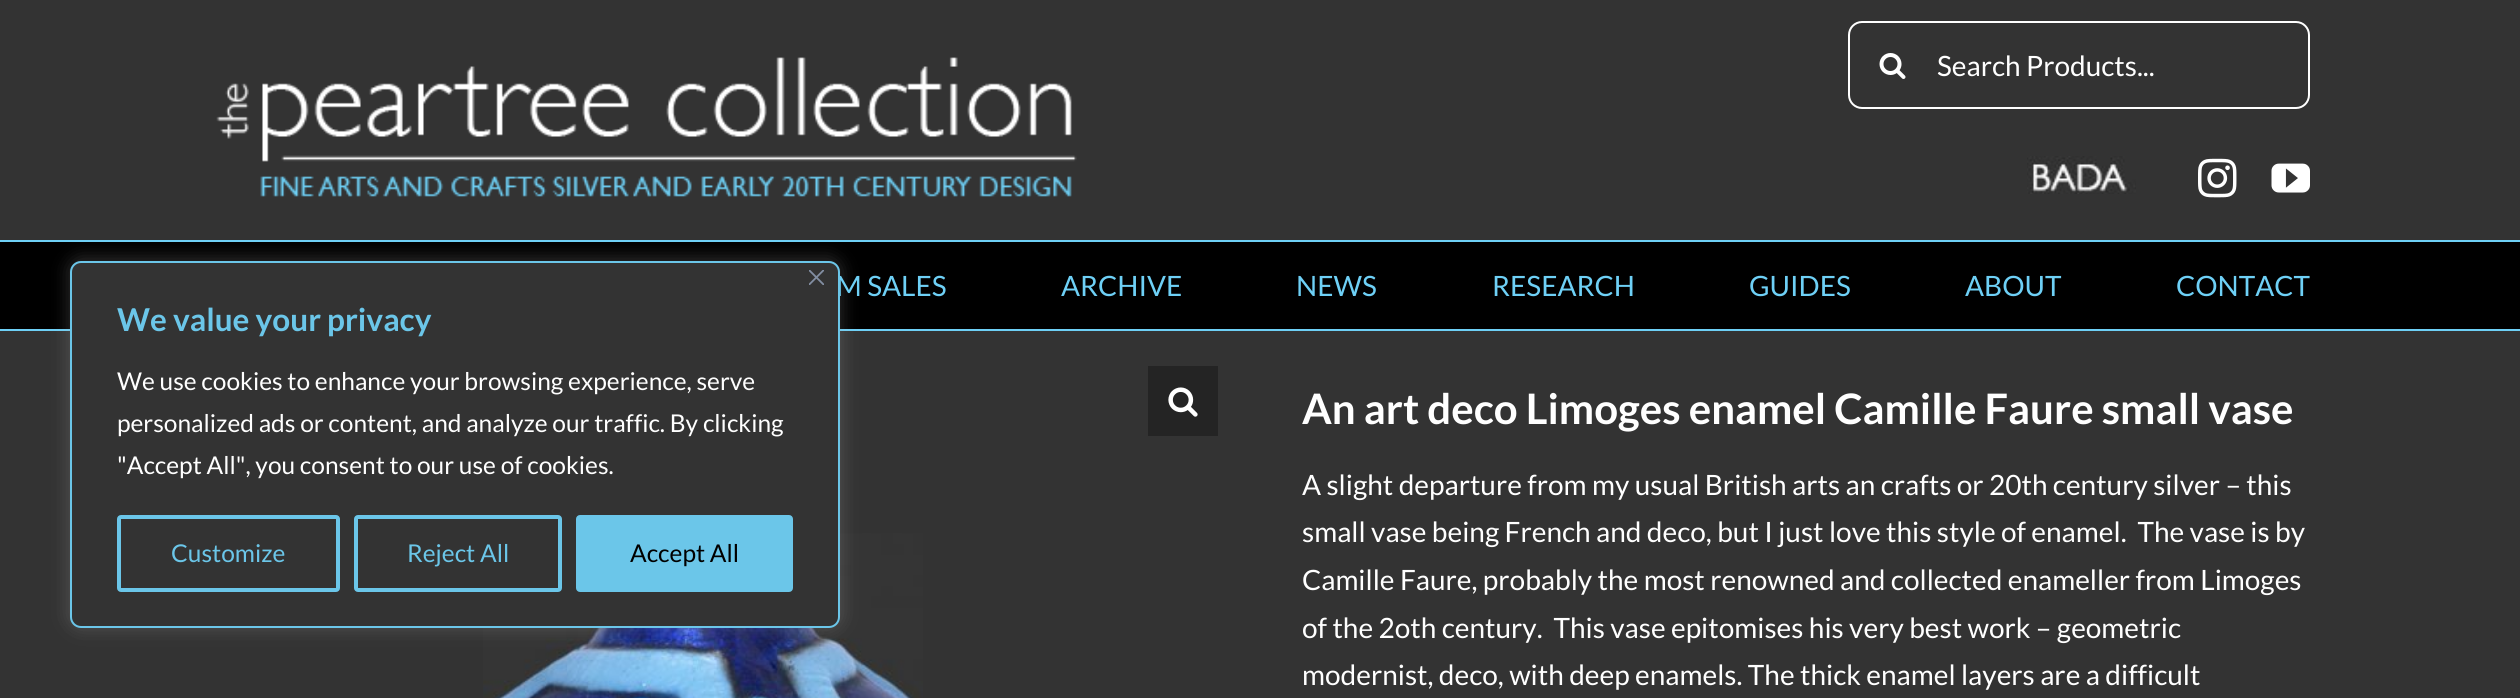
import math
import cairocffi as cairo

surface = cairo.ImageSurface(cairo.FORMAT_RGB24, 2520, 698)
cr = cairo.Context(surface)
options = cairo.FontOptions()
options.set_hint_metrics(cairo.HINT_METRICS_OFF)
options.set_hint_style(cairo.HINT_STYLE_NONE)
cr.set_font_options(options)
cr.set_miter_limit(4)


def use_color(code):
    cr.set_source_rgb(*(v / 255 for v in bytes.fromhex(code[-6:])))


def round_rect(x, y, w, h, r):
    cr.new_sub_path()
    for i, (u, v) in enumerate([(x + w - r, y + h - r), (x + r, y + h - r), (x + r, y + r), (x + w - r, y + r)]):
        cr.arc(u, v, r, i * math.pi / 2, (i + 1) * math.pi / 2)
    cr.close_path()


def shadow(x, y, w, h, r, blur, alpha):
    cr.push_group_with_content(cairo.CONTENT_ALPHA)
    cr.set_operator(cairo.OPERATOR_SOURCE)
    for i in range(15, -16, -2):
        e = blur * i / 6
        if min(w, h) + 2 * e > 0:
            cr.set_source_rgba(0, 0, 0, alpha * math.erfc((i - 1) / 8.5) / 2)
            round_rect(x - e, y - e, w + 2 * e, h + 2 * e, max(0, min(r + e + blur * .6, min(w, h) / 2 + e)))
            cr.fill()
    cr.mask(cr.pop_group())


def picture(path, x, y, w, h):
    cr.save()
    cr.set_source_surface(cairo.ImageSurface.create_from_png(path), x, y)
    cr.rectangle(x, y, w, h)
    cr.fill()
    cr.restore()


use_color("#333333")
cr.paint()
use_color("#000000")
cr.rectangle(0, 242, 2520, 87)
cr.fill()
use_color("#6ed0f6")
cr.rectangle(0, 240, 2520, 2)
cr.fill()
cr.rectangle(0, 329, 2520, 2)
cr.fill()
picture("img8.png", 483, 533, 440, 165)
use_color("#acabab")
shadow(70, 259, 770, 368, 11, 9, 0.3)
cr.select_font_face("Lato")
cr.set_font_size(28)
use_color("#6ed0f6")
cr.move_to(836, 296)
cr.show_text("M SALES")
use_color("#333333")
round_rect(71, 262, 768, 365, 10)
cr.fill_preserve()
use_color("#6bc6e9")
cr.stroke()
picture("img1.png", 809, 270, 15, 15)
cr.select_font_face("Lato", cairo.FONT_SLANT_NORMAL, cairo.FONT_WEIGHT_BOLD)
cr.set_font_size(31.5)
cr.move_to(117, 331)
cr.show_text("We value your privacy")
cr.select_font_face("Lato")
cr.set_font_size(24.5)
use_color("#ffffff")
cr.move_to(117, 390)
cr.show_text("We use cookies to enhance your browsing experience, serve")
cr.move_to(117, 432)
cr.show_text("personalized ads or content, and analyze our traffic. By clicking")
cr.move_to(117, 474)
cr.show_text("\"Accept All\", you consent to our use of cookies.")
round_rect(119, 517, 219, 73, 2)
use_color("#6bc6e9")
cr.set_line_width(4)
cr.stroke()
cr.move_to(171, 562)
cr.show_text("Customize")
round_rect(356, 517, 204, 73, 2)
cr.stroke()
cr.move_to(407, 562)
cr.show_text("Reject All")
round_rect(578, 517, 213, 73, 2)
cr.fill_preserve()
cr.stroke()
use_color("#000000")
cr.move_to(630, 562)
cr.show_text("Accept All")
picture("img2.png", 216, 57, 861, 140)
round_rect(1849, 22, 460, 86, 13)
use_color("#ffffff")
cr.set_line_width(2)
cr.stroke()
picture("img3.png", 1879, 53, 27, 26)
cr.set_font_size(28)
cr.move_to(1937, 76)
cr.show_text("Search Products...")
picture("img4.png", 2027, 156, 109, 38)
picture("img5.png", 2198, 158, 39, 40)
picture("img6.png", 2271, 163, 39, 30)
use_color("#6ed0f6")
cr.move_to(1061, 296)
cr.show_text("ARCHIVE")
cr.move_to(1296, 296)
cr.show_text("NEWS")
cr.move_to(1492, 296)
cr.show_text("RESEARCH")
cr.move_to(1749, 296)
cr.show_text("GUIDES")
cr.move_to(1965, 296)
cr.show_text("ABOUT")
cr.move_to(2176, 296)
cr.show_text("CONTACT")
use_color("#242424")
cr.rectangle(1148, 366, 70, 70)
cr.fill()
picture("img7.png", 1168, 387, 30, 30)
cr.select_font_face("Lato", cairo.FONT_SLANT_NORMAL, cairo.FONT_WEIGHT_BOLD)
cr.set_font_size(42)
use_color("#ffffff")
cr.move_to(1302, 424)
cr.show_text("An art deco Limoges enamel Camille Faure small vase")
cr.select_font_face("Lato")
cr.set_font_size(28)
cr.move_to(1302, 495)
cr.show_text("A slight departure from my usual British arts an crafts or 20th century silver – this")
cr.move_to(1302, 542)
cr.show_text("small vase being French and deco, but I just love this style of enamel.  The vase is by")
cr.move_to(1302, 590)
cr.show_text("Camille Faure, probably the most renowned and collected enameller from Limoges")
cr.move_to(1302, 638)
cr.show_text("of the 2oth century.  This vase epitomises his very best work – geometric")
cr.move_to(1302, 685)
cr.show_text("modernist, deco, with deep enamels. The thick enamel layers are a difficult")
surface.write_to_png("result.png")
